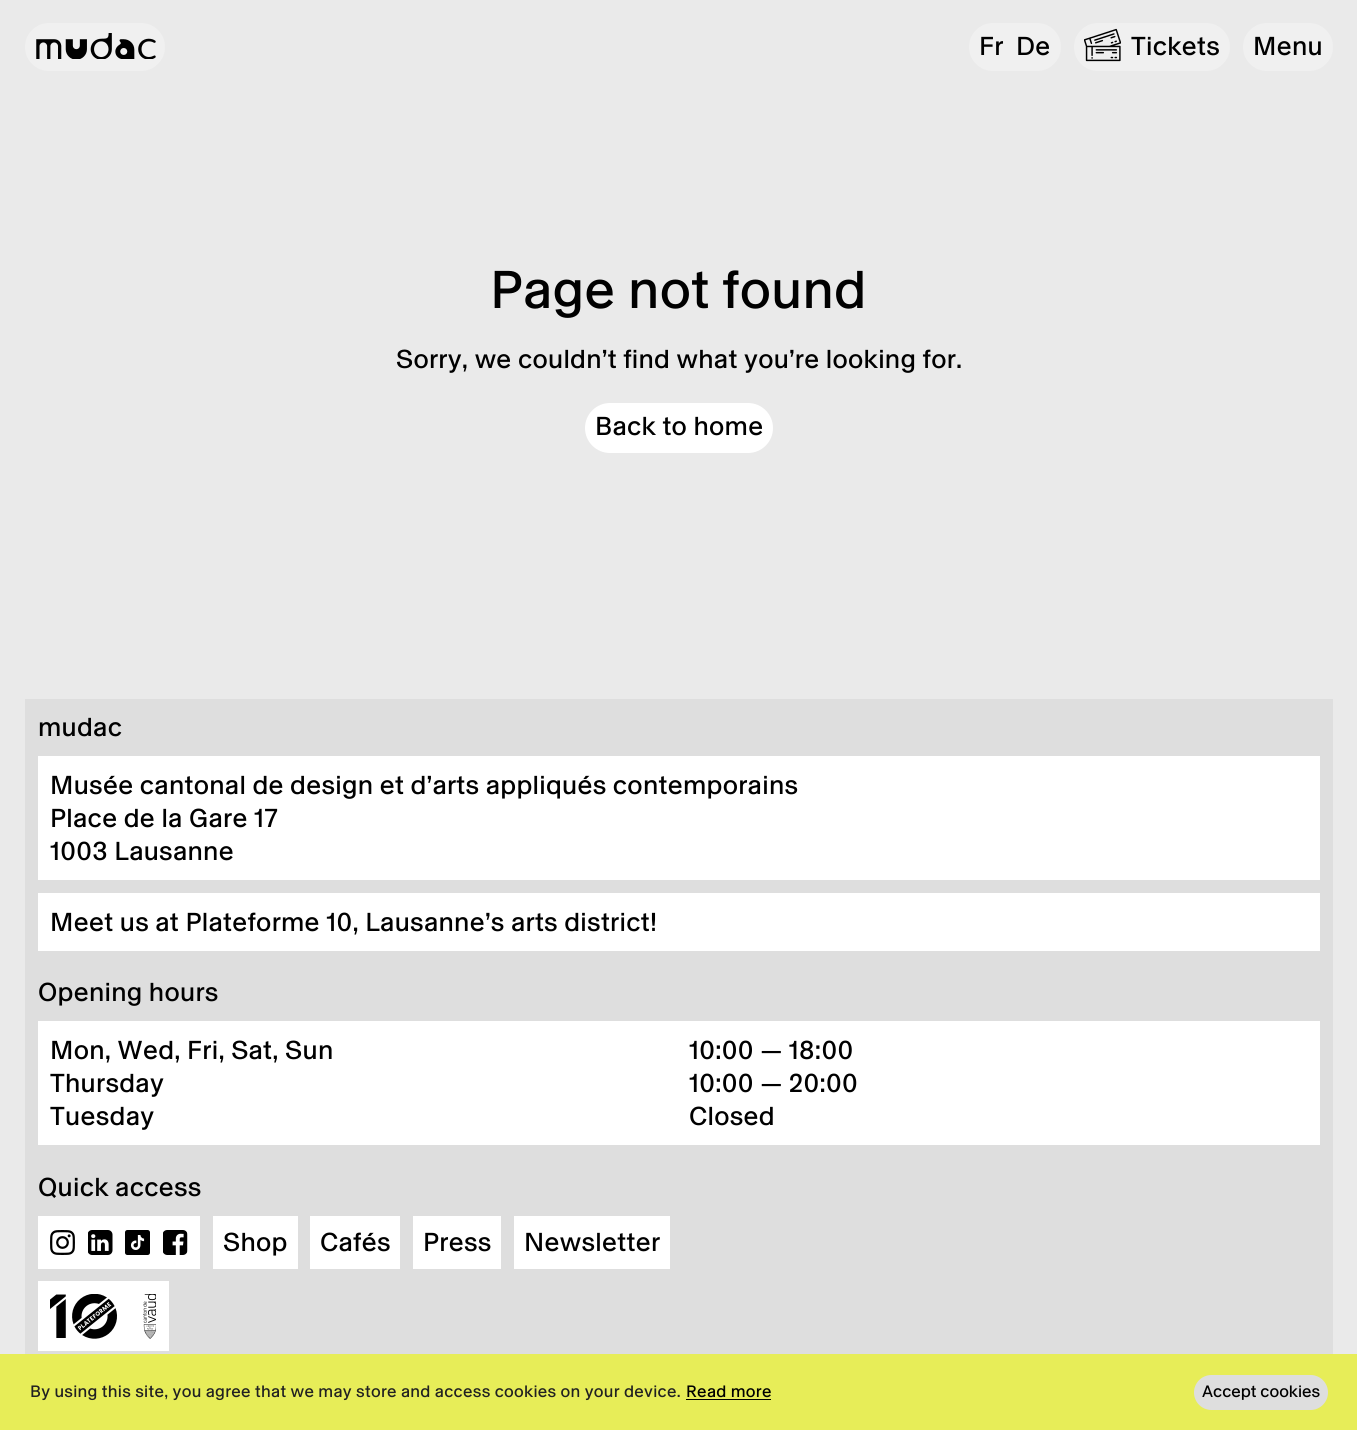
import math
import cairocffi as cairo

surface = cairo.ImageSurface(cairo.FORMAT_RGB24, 1357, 1430)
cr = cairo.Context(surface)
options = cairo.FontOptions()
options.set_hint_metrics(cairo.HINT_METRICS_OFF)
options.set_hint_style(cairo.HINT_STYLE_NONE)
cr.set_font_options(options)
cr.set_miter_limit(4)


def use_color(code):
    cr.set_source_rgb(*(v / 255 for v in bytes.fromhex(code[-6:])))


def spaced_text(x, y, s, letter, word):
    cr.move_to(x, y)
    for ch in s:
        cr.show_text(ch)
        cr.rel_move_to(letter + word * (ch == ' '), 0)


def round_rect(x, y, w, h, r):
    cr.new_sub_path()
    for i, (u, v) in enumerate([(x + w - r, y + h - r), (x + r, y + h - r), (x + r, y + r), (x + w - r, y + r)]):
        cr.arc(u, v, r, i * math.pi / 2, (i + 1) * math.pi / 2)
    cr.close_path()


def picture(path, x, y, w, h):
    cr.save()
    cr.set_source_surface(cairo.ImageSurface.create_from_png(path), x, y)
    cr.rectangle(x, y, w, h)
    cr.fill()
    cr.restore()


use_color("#eaeaea")
cr.paint()
use_color("#f0f0f0")
round_rect(25, 23, 140, 48, 24)
cr.fill()
picture("img1.png", 36, 33, 120, 26)
round_rect(969, 23, 92, 48, 24)
cr.fill()
cr.select_font_face("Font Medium")
cr.set_font_size(27.5)
use_color("#000000")
spaced_text(979, 55, "Fr", 0.28, 0)
spaced_text(1016, 55, "De", 0.28, 0)
use_color("#f0f0f0")
round_rect(1074, 23, 156, 48, 24)
cr.fill()
picture("img2.png", 1084, 28, 37, 34)
use_color("#000000")
spaced_text(1131, 55, "Tickets", 0.28, 0)
use_color("#f0f0f0")
round_rect(1243, 23, 90, 48, 24)
cr.fill()
use_color("#000000")
spaced_text(1253, 55, "Menu", 0.28, 0)
cr.set_font_size(56.25)
spaced_text(490, 308, "Page not found", 0.28, 0)
cr.set_font_size(27.5)
spaced_text(396, 368, "Sorry, we couldn't find what you're looking for.", 0.28, 0)
use_color("#ffffff")
round_rect(585, 403, 188, 50, 25)
cr.fill()
use_color("#000000")
spaced_text(595, 435, "Back to home", 0.28, 0)
use_color("#dedede")
cr.rectangle(25, 699, 1308, 655)
cr.fill()
use_color("#000000")
spaced_text(38, 736, "mudac", 0.28, 0)
use_color("#ffffff")
cr.rectangle(38, 756, 1282, 124)
cr.fill()
use_color("#000000")
spaced_text(50, 794, "Musée cantonal de design et d’arts appliqués contemporains", 0.28, 0)
spaced_text(50, 827, "Place de la Gare 17", 0.28, 0)
spaced_text(50, 860, "1003 Lausanne", 0.28, 0)
use_color("#ffffff")
cr.rectangle(38, 893, 1282, 58)
cr.fill()
use_color("#000000")
spaced_text(50, 931, "Meet us at Plateforme 10, Lausanne’s arts district!", 0.28, 0)
spaced_text(38, 1001, "Opening hours", 0.28, 0)
use_color("#ffffff")
cr.rectangle(38, 1021, 1282, 124)
cr.fill()
use_color("#000000")
spaced_text(50, 1059, "Mon, Wed, Fri, Sat, Sun", 0.28, 0)
spaced_text(689, 1059, "10:00 — 18:00", 0.28, 0)
spaced_text(50, 1092, "Thursday", 0.28, 0)
spaced_text(689, 1092, "10:00 — 20:00", 0.28, 0)
spaced_text(50, 1125, "Tuesday", 0.28, 0)
spaced_text(689, 1125, "Closed", 0.28, 0)
spaced_text(38, 1196, "Quick access", 0.28, 0)
use_color("#ffffff")
cr.rectangle(38, 1216, 162, 53)
cr.fill()
picture("img3.png", 50, 1230, 25, 25)
picture("img4.png", 88, 1230, 25, 25)
picture("img5.png", 125, 1230, 25, 25)
picture("img6.png", 163, 1230, 25, 25)
cr.rectangle(213, 1216, 85, 53)
cr.fill()
use_color("#000000")
spaced_text(223, 1251, "Shop", 0.28, 0)
use_color("#ffffff")
cr.rectangle(310, 1216, 90, 53)
cr.fill()
use_color("#000000")
spaced_text(320, 1251, "Cafés", 0.28, 0)
use_color("#ffffff")
cr.rectangle(413, 1216, 88, 53)
cr.fill()
use_color("#000000")
spaced_text(423, 1251, "Press", 0.28, 0)
use_color("#ffffff")
cr.rectangle(514, 1216, 156, 53)
cr.fill()
use_color("#000000")
spaced_text(524, 1251, "Newsletter", 0.28, 0)
use_color("#ffffff")
cr.rectangle(38, 1281, 131, 70)
cr.fill()
picture("img7.png", 50, 1294, 67, 45)
picture("img8.png", 143, 1294, 13, 45)
use_color("#e7ed58")
cr.rectangle(0, 1354, 1357, 76)
cr.fill()
cr.set_font_size(17.5)
use_color("#212121")
spaced_text(30, 1397, "By using this site, you agree that we may store and access cookies on your device.", 0.28, 0)
use_color("#000000")
spaced_text(686, 1397, "Read more", 0.28, 0)
cr.rectangle(686, 1399, 85, 1)
cr.fill()
use_color("#dedede")
round_rect(1194, 1375, 134, 35, 17.5)
cr.fill()
use_color("#000000")
cr.move_to(1202, 1397)
cr.show_text("Accept cookies")
surface.write_to_png("result.png")
